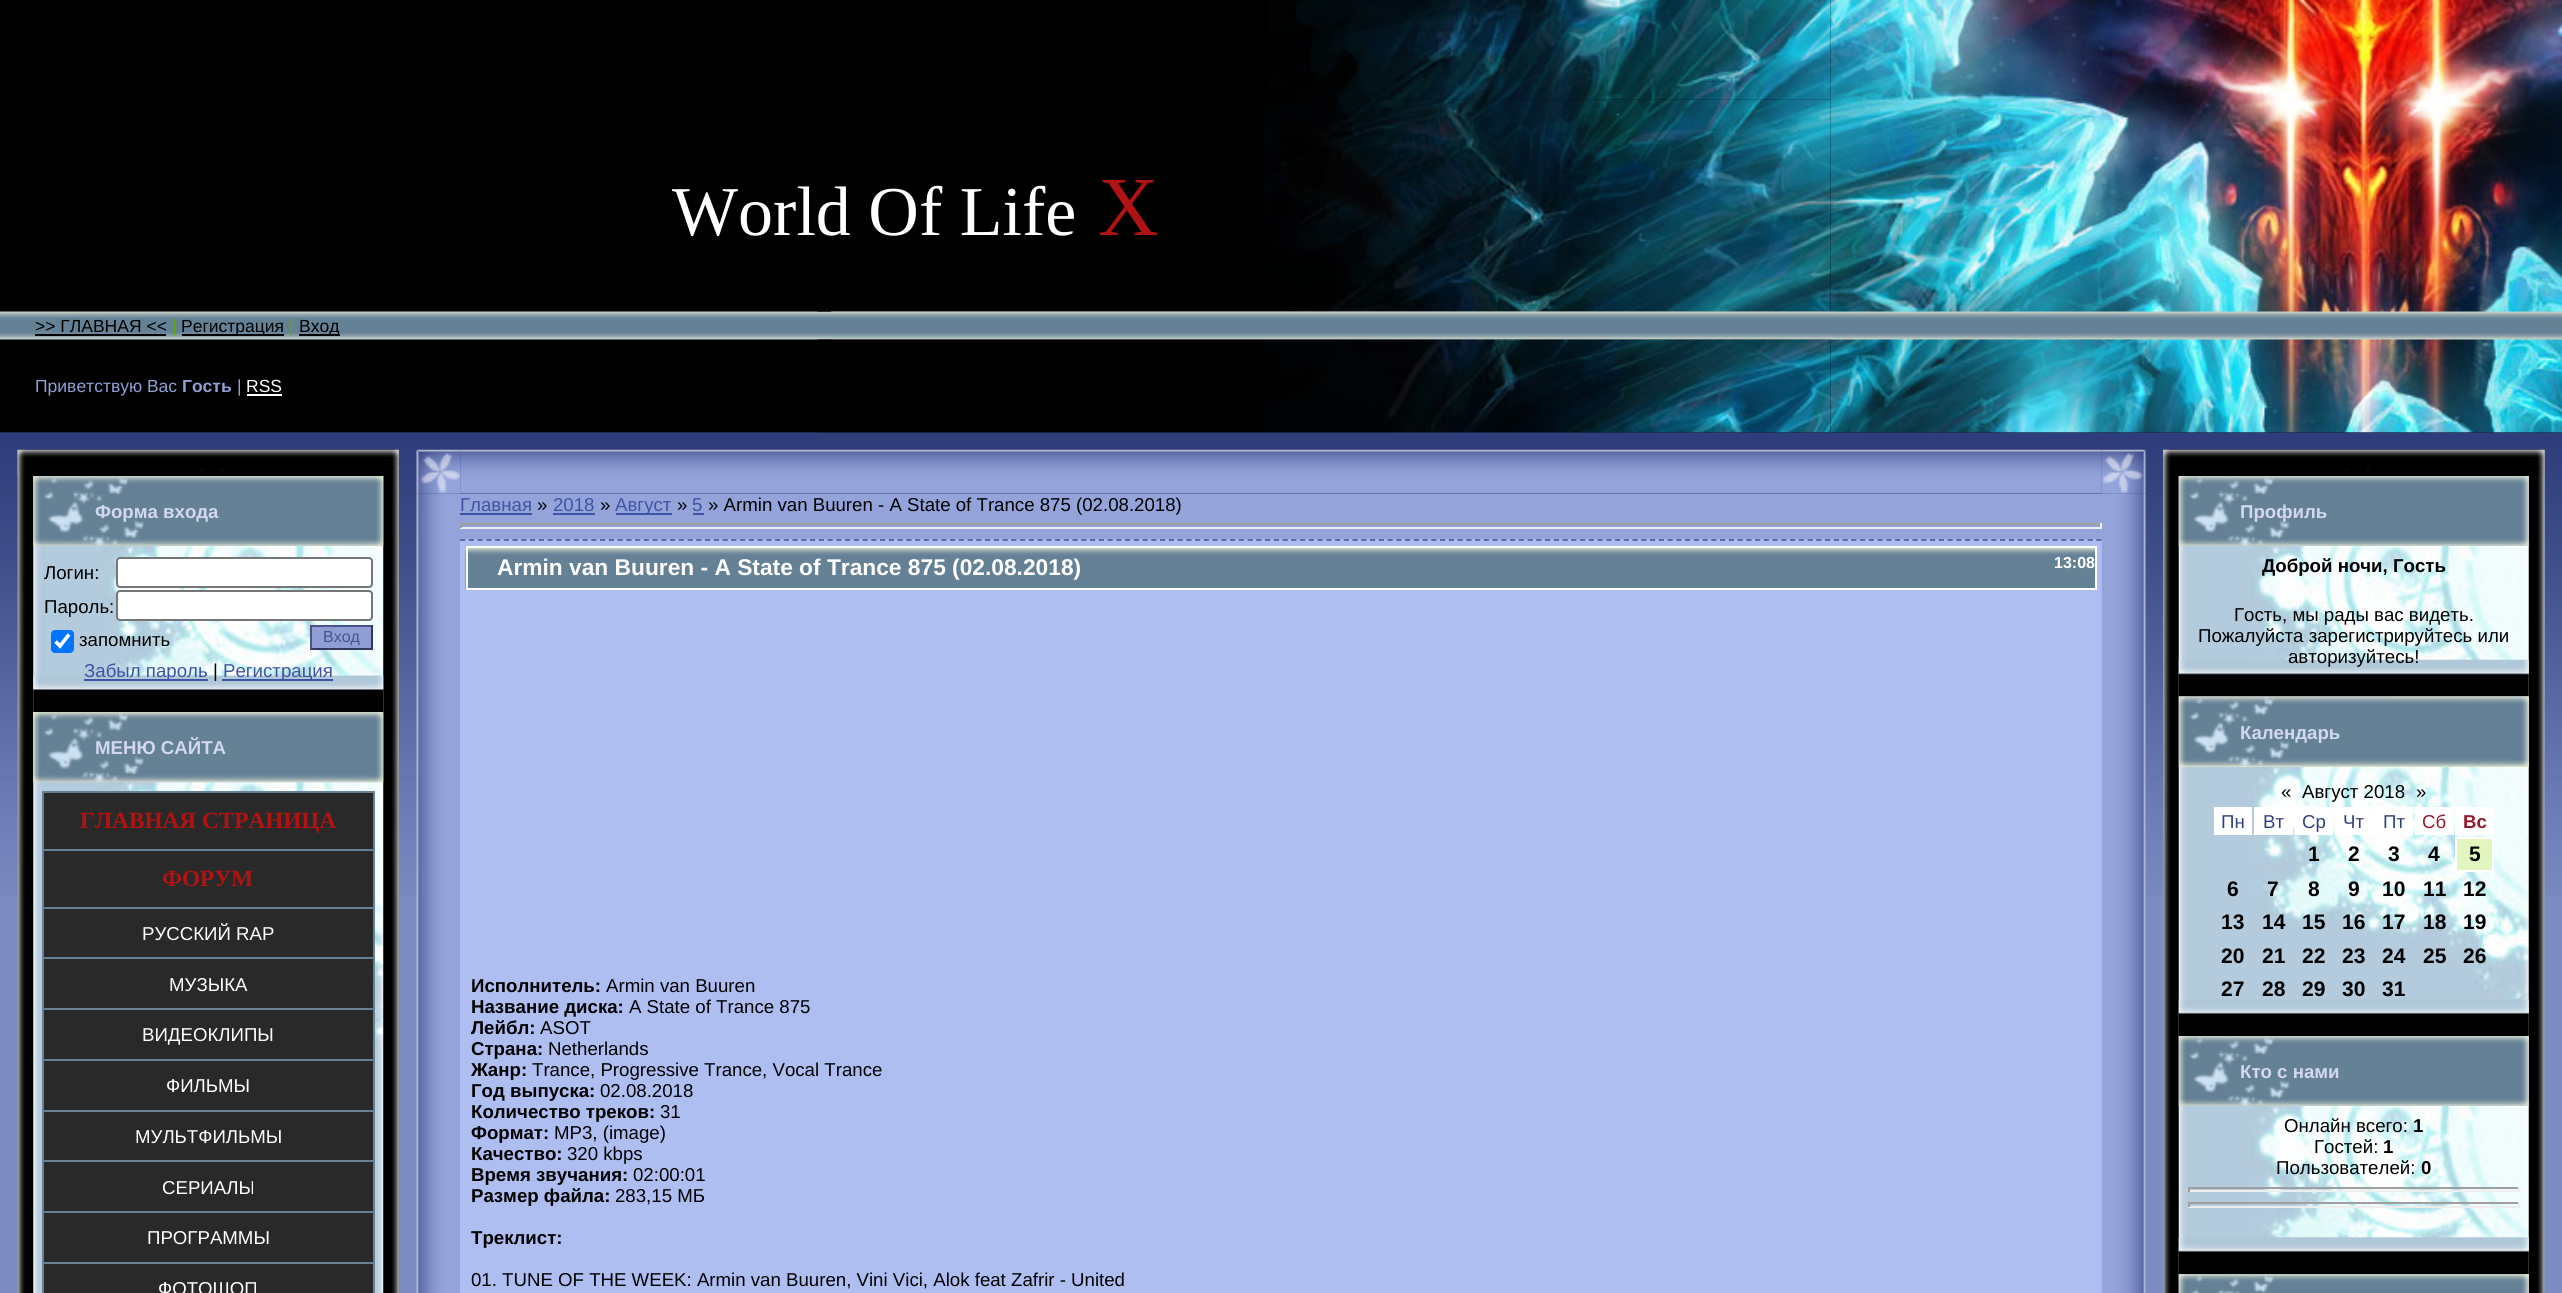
import math
import cairocffi as cairo

surface = cairo.ImageSurface(cairo.FORMAT_RGB24, 2562, 1293)
cr = cairo.Context(surface)
options = cairo.FontOptions()
options.set_hint_metrics(cairo.HINT_METRICS_OFF)
options.set_hint_style(cairo.HINT_STYLE_NONE)
cr.set_font_options(options)
cr.set_miter_limit(4)


def use_color(code):
    cr.set_source_rgb(*(v / 255 for v in bytes.fromhex(code[-6:])))


def round_rect(x, y, w, h, r):
    cr.new_sub_path()
    for i, (u, v) in enumerate([(x + w - r, y + h - r), (x + r, y + h - r), (x + r, y + r), (x + w - r, y + r)]):
        cr.arc(u, v, r, i * math.pi / 2, (i + 1) * math.pi / 2)
    cr.close_path()


def picture(path, x, y, w, h):
    cr.save()
    cr.set_source_surface(cairo.ImageSurface.create_from_png(path), x, y)
    cr.rectangle(x, y, w, h)
    cr.fill()
    cr.restore()


use_color("#7c8cc3")
cr.paint()
picture("img1.png", 0, 0, 2562, 896)
picture("img3.png", 1269, 0, 562, 100)
picture("img2.png", 817, 99, 1014, 213)
cr.select_font_face("Liberation Serif")
cr.set_font_size(70)
use_color("#ffffff")
cr.move_to(672, 235)
cr.show_text("World Of Life")
cr.set_font_size(84)
use_color("#b11313")
cr.move_to(1098, 235)
cr.show_text("Х")
picture("img5.png", 831, 311, 1000, 29)
picture("img6.png", 817, 339, 1014, 94)
picture("img4.png", 1830, 0, 732, 433)
cr.select_font_face("Liberation Sans")
cr.set_font_size(17.5)
use_color("#000000")
cr.move_to(35, 332)
cr.show_text(">> ГЛАВНАЯ <<")
cr.rectangle(35, 334, 131, 2)
cr.fill()
use_color("#61a800")
cr.move_to(172, 332)
cr.show_text("|")
use_color("#000000")
cr.rectangle(182, 334, 102, 2)
cr.fill()
cr.move_to(181, 332)
cr.show_text("Регистрация")
use_color("#61a800")
cr.move_to(289, 332)
cr.show_text("|")
use_color("#000000")
cr.rectangle(299, 334, 41, 2)
cr.fill()
cr.move_to(299, 332)
cr.show_text("Вход")
use_color("#90a0d7")
cr.move_to(35, 392)
cr.show_text("Приветствую Вас")
cr.select_font_face("Liberation Sans", cairo.FONT_SLANT_NORMAL, cairo.FONT_WEIGHT_BOLD)
cr.move_to(182, 392)
cr.show_text("Гость")
cr.select_font_face("Liberation Sans")
cr.move_to(237, 392)
cr.show_text("|")
use_color("#ffffff")
cr.move_to(246, 392)
cr.show_text("RSS")
cr.rectangle(247, 394, 35, 2)
cr.fill()
picture("img7.png", 17, 449, 382, 844)
picture("img8.png", 17, 449, 382, 27)
picture("img9.png", 33, 476, 351, 237)
picture("img10.png", 33, 476, 351, 70)
cr.select_font_face("Liberation Sans", cairo.FONT_SLANT_NORMAL, cairo.FONT_WEIGHT_BOLD)
cr.set_font_size(18.65)
use_color("#d3d8ee")
cr.move_to(95, 518)
cr.show_text("Форма входа")
picture("img11.png", 33, 675, 351, 38)
cr.select_font_face("Liberation Sans")
use_color("#000000")
cr.move_to(44, 579)
cr.show_text("Логин:")
use_color("#ffffff")
round_rect(117, 558, 255, 29, 3)
cr.fill_preserve()
use_color("#767676")
cr.stroke()
use_color("#000000")
cr.move_to(44, 613)
cr.show_text("Пароль:")
use_color("#ffffff")
round_rect(117, 591, 255, 29, 3)
cr.fill_preserve()
use_color("#767676")
cr.stroke()
use_color("#0075ff")
round_rect(51, 630, 23, 23, 4)
cr.fill()
cr.new_path()
cr.move_to(55.5, 641.5)
cr.line_to(60, 646)
cr.line_to(69, 634.5)
use_color("#ffffff")
cr.set_line_width(3.6)
cr.stroke()
use_color("#000000")
cr.move_to(79, 646)
cr.show_text("запомнить")
use_color("#8f9fd4")
cr.rectangle(312, 627, 59, 21)
cr.fill()
use_color("#49548b")
cr.rectangle(310, 625, 63, 2)
cr.fill()
use_color("#31385d")
cr.rectangle(371, 625, 2, 24)
cr.fill()
cr.rectangle(310, 648, 63, 2)
cr.fill()
use_color("#49548b")
cr.rectangle(310, 625, 2, 24)
cr.fill()
cr.set_font_size(16)
cr.move_to(323, 642)
cr.show_text("Вход")
use_color("#3f53a4")
cr.rectangle(84, 679, 124, 2)
cr.fill()
cr.set_font_size(18.65)
cr.move_to(84, 677)
cr.show_text("Забыл пароль")
use_color("#000000")
cr.move_to(213, 677)
cr.show_text("|")
use_color("#3f53a4")
cr.rectangle(222, 679, 111, 2)
cr.fill()
cr.move_to(223, 677)
cr.show_text("Регистрация")
picture("img12.png", 33, 712, 351, 581)
use_color("#e3f6bf")
cr.rectangle(33, 712, 350, 70)
cr.fill()
picture("img13.png", 33, 712, 351, 71)
cr.select_font_face("Liberation Sans", cairo.FONT_SLANT_NORMAL, cairo.FONT_WEIGHT_BOLD)
use_color("#d3d8ee")
cr.move_to(95, 754)
cr.show_text("МЕНЮ САЙТА")
use_color("#292929")
cr.rectangle(44, 793, 329, 56)
cr.fill()
use_color("#658196")
cr.rectangle(42, 791, 333, 2)
cr.fill()
cr.rectangle(373, 791, 2, 58)
cr.fill()
cr.rectangle(42, 791, 2, 58)
cr.fill()
cr.select_font_face("Liberation Serif", cairo.FONT_SLANT_NORMAL, cairo.FONT_WEIGHT_BOLD)
cr.set_font_size(23.25)
use_color("#b11313")
cr.move_to(80, 828)
cr.show_text("ГЛАВНАЯ СТРАНИЦА")
use_color("#292929")
cr.rectangle(44, 851, 329, 56)
cr.fill()
use_color("#658196")
cr.rectangle(42, 849, 333, 2)
cr.fill()
cr.rectangle(373, 849, 2, 58)
cr.fill()
cr.rectangle(42, 849, 2, 58)
cr.fill()
use_color("#b11313")
cr.move_to(162, 886)
cr.show_text("ФОРУМ")
use_color("#292929")
cr.rectangle(44, 909, 329, 48)
cr.fill()
use_color("#658196")
cr.rectangle(42, 907, 333, 2)
cr.fill()
cr.rectangle(373, 907, 2, 50)
cr.fill()
cr.rectangle(42, 907, 2, 50)
cr.fill()
cr.select_font_face("Liberation Sans")
cr.set_font_size(18.65)
use_color("#ffffff")
cr.move_to(142, 940)
cr.show_text("РУССКИЙ RAP")
use_color("#292929")
cr.rectangle(44, 959, 329, 49)
cr.fill()
use_color("#658196")
cr.rectangle(42, 957, 333, 2)
cr.fill()
cr.rectangle(373, 957, 2, 51)
cr.fill()
cr.rectangle(42, 957, 2, 51)
cr.fill()
use_color("#ffffff")
cr.move_to(169, 991)
cr.show_text("МУЗЫКА")
use_color("#292929")
cr.rectangle(44, 1010, 329, 49)
cr.fill()
use_color("#658196")
cr.rectangle(42, 1008, 333, 2)
cr.fill()
cr.rectangle(373, 1008, 2, 51)
cr.fill()
cr.rectangle(42, 1008, 2, 51)
cr.fill()
use_color("#ffffff")
cr.move_to(142, 1041)
cr.show_text("ВИДЕОКЛИПЫ")
use_color("#292929")
cr.rectangle(44, 1061, 329, 49)
cr.fill()
use_color("#658196")
cr.rectangle(42, 1059, 333, 2)
cr.fill()
cr.rectangle(373, 1059, 2, 51)
cr.fill()
cr.rectangle(42, 1059, 2, 51)
cr.fill()
use_color("#ffffff")
cr.move_to(166, 1092)
cr.show_text("ФИЛЬМЫ")
use_color("#292929")
cr.rectangle(44, 1112, 329, 48)
cr.fill()
use_color("#658196")
cr.rectangle(42, 1110, 333, 2)
cr.fill()
cr.rectangle(373, 1110, 2, 50)
cr.fill()
cr.rectangle(42, 1110, 2, 50)
cr.fill()
use_color("#ffffff")
cr.move_to(135, 1143)
cr.show_text("МУЛЬТФИЛЬМЫ")
use_color("#292929")
cr.rectangle(44, 1162, 329, 49)
cr.fill()
use_color("#658196")
cr.rectangle(42, 1160, 333, 2)
cr.fill()
cr.rectangle(373, 1160, 2, 51)
cr.fill()
cr.rectangle(42, 1160, 2, 51)
cr.fill()
use_color("#ffffff")
cr.move_to(162, 1194)
cr.show_text("СЕРИАЛЫ")
use_color("#292929")
cr.rectangle(44, 1213, 329, 49)
cr.fill()
use_color("#658196")
cr.rectangle(42, 1211, 333, 2)
cr.fill()
cr.rectangle(373, 1211, 2, 51)
cr.fill()
cr.rectangle(42, 1211, 2, 51)
cr.fill()
use_color("#ffffff")
cr.move_to(147, 1244)
cr.show_text("ПРОГРАММЫ")
use_color("#292929")
cr.rectangle(44, 1264, 329, 29)
cr.fill()
use_color("#658196")
cr.rectangle(42, 1262, 333, 2)
cr.fill()
cr.rectangle(373, 1262, 2, 31)
cr.fill()
cr.rectangle(42, 1262, 2, 31)
cr.fill()
use_color("#ffffff")
cr.move_to(158, 1295)
cr.show_text("ФОТОШОП")
picture("img15.png", 460, 449, 1642, 45)
picture("img17.png", 416, 493, 45, 800)
picture("img14.png", 416, 449, 45, 45)
use_color("#94a4db")
cr.rectangle(460, 494, 1642, 45)
cr.fill()
use_color("#afbef1")
cr.rectangle(460, 539, 1642, 754)
cr.fill()
cr.new_path()
cr.move_to(460, 540)
cr.line_to(2102, 540)
use_color("#55649e")
cr.set_line_width(1.8)
cr.set_dash([5.25, 3.5])
cr.stroke()
picture("img19.png", 2101, 493, 45, 800)
picture("img16.png", 2101, 449, 45, 45)
use_color("#3f53a4")
cr.move_to(460, 511)
cr.show_text("Главная")
cr.rectangle(460, 513, 72, 2)
cr.fill()
use_color("#000000")
cr.move_to(537, 511)
cr.show_text("»")
use_color("#3f53a4")
cr.move_to(553, 511)
cr.show_text("2018")
cr.rectangle(553, 513, 42, 2)
cr.fill()
use_color("#000000")
cr.move_to(600, 511)
cr.show_text("»")
use_color("#3f53a4")
cr.rectangle(616, 513, 56, 2)
cr.fill()
cr.move_to(615, 511)
cr.show_text("Август")
use_color("#000000")
cr.move_to(677, 511)
cr.show_text("»")
use_color("#3f53a4")
cr.move_to(692, 511)
cr.show_text("5")
cr.rectangle(693, 513, 11, 2)
cr.fill()
use_color("#000000")
cr.move_to(708, 511)
cr.show_text("» Armin van Buuren - A State of Trance 875 (02.08.2018)")
use_color("#9f9f9f")
cr.rectangle(460, 523, 1642, 2)
cr.fill()
use_color("#eeeeee")
cr.rectangle(2100, 523, 2, 5)
cr.fill()
cr.rectangle(460, 527, 1642, 2)
cr.fill()
use_color("#9f9f9f")
cr.rectangle(460, 523, 2, 5)
cr.fill()
picture("img18.png", 465, 547, 1630, 43)
cr.rectangle(467, 547, 1629, 42)
use_color("#ffffff")
cr.set_line_width(2)
cr.set_dash([])
cr.stroke()
cr.select_font_face("Liberation Sans", cairo.FONT_SLANT_NORMAL, cairo.FONT_WEIGHT_BOLD)
cr.set_font_size(22.75)
cr.move_to(497, 575)
cr.show_text("Armin van Buuren - A State of Trance 875 (02.08.2018)")
cr.set_font_size(16)
cr.move_to(2054, 568)
cr.show_text("13:08")
cr.set_font_size(18.65)
use_color("#000000")
cr.move_to(471, 992)
cr.show_text("Исполнитель:")
cr.select_font_face("Liberation Sans")
cr.move_to(606, 992)
cr.show_text("Armin van Buuren")
cr.select_font_face("Liberation Sans", cairo.FONT_SLANT_NORMAL, cairo.FONT_WEIGHT_BOLD)
cr.move_to(471, 1013)
cr.show_text("Название диска:")
cr.select_font_face("Liberation Sans")
cr.move_to(629, 1013)
cr.show_text("A State of Trance 875")
cr.select_font_face("Liberation Sans", cairo.FONT_SLANT_NORMAL, cairo.FONT_WEIGHT_BOLD)
cr.move_to(471, 1034)
cr.show_text("Лейбл:")
cr.select_font_face("Liberation Sans")
cr.move_to(540, 1034)
cr.show_text("ASOT")
cr.select_font_face("Liberation Sans", cairo.FONT_SLANT_NORMAL, cairo.FONT_WEIGHT_BOLD)
cr.move_to(471, 1055)
cr.show_text("Страна:")
cr.select_font_face("Liberation Sans")
cr.move_to(548, 1055)
cr.show_text("Netherlands")
cr.select_font_face("Liberation Sans", cairo.FONT_SLANT_NORMAL, cairo.FONT_WEIGHT_BOLD)
cr.move_to(471, 1076)
cr.show_text("Жанр:")
cr.select_font_face("Liberation Sans")
cr.move_to(532, 1076)
cr.show_text("Trance, Progressive Trance, Vocal Trance")
cr.select_font_face("Liberation Sans", cairo.FONT_SLANT_NORMAL, cairo.FONT_WEIGHT_BOLD)
cr.move_to(471, 1097)
cr.show_text("Год выпуска:")
cr.select_font_face("Liberation Sans")
cr.move_to(600, 1097)
cr.show_text("02.08.2018")
cr.select_font_face("Liberation Sans", cairo.FONT_SLANT_NORMAL, cairo.FONT_WEIGHT_BOLD)
cr.move_to(471, 1118)
cr.show_text("Количество треков:")
cr.select_font_face("Liberation Sans")
cr.move_to(660, 1118)
cr.show_text("31")
cr.select_font_face("Liberation Sans", cairo.FONT_SLANT_NORMAL, cairo.FONT_WEIGHT_BOLD)
cr.move_to(471, 1139)
cr.show_text("Формат:")
cr.select_font_face("Liberation Sans")
cr.move_to(554, 1139)
cr.show_text("MP3, (image)")
cr.select_font_face("Liberation Sans", cairo.FONT_SLANT_NORMAL, cairo.FONT_WEIGHT_BOLD)
cr.move_to(471, 1160)
cr.show_text("Качество:")
cr.select_font_face("Liberation Sans")
cr.move_to(567, 1160)
cr.show_text("320 kbps")
cr.select_font_face("Liberation Sans", cairo.FONT_SLANT_NORMAL, cairo.FONT_WEIGHT_BOLD)
cr.move_to(471, 1181)
cr.show_text("Время звучания:")
cr.select_font_face("Liberation Sans")
cr.move_to(633, 1181)
cr.show_text("02:00:01")
cr.select_font_face("Liberation Sans", cairo.FONT_SLANT_NORMAL, cairo.FONT_WEIGHT_BOLD)
cr.move_to(471, 1202)
cr.show_text("Размер файла:")
cr.select_font_face("Liberation Sans")
cr.move_to(615, 1202)
cr.show_text("283,15 МБ")
cr.select_font_face("Liberation Sans", cairo.FONT_SLANT_NORMAL, cairo.FONT_WEIGHT_BOLD)
cr.move_to(471, 1244)
cr.show_text("Треклист:")
cr.select_font_face("Liberation Sans")
cr.move_to(471, 1286)
cr.show_text("01. TUNE OF THE WEEK: Armin van Buuren, Vini Vici, Alok feat Zafrir - United")
use_color("#8292cc")
cr.rectangle(2544, 450, 1, 843)
cr.fill()
picture("img20.png", 2163, 449, 382, 844)
picture("img21.png", 2163, 449, 382, 27)
picture("img22.png", 2178, 476, 351, 221)
picture("img23.png", 2178, 476, 351, 70)
cr.select_font_face("Liberation Sans", cairo.FONT_SLANT_NORMAL, cairo.FONT_WEIGHT_BOLD)
use_color("#d3d8ee")
cr.move_to(2240, 518)
cr.show_text("Профиль")
picture("img24.png", 2178, 659, 351, 38)
use_color("#000000")
cr.move_to(2262, 572)
cr.show_text("Доброй ночи, Гость")
cr.select_font_face("Liberation Sans")
cr.move_to(2234, 621)
cr.show_text("Гость, мы рады вас видеть.")
cr.move_to(2198, 642)
cr.show_text("Пожалуйста зарегистрируйтесь или")
cr.move_to(2288, 663)
cr.show_text("авторизуйтесь!")
picture("img25.png", 2178, 696, 351, 340)
use_color("#e3f6bf")
cr.rectangle(2179, 697, 350, 70)
cr.fill()
picture("img26.png", 2178, 696, 351, 71)
cr.select_font_face("Liberation Sans", cairo.FONT_SLANT_NORMAL, cairo.FONT_WEIGHT_BOLD)
use_color("#d3d8ee")
cr.move_to(2240, 739)
cr.show_text("Календарь")
picture("img27.png", 2178, 999, 351, 37)
cr.select_font_face("Liberation Sans")
use_color("#000000")
cr.move_to(2281, 798)
cr.show_text("«")
cr.move_to(2302, 798)
cr.show_text("Август 2018")
cr.move_to(2416, 798)
cr.show_text("»")
use_color("#ffffff")
cr.rectangle(2214, 807, 38, 28)
cr.fill()
use_color("#32417e")
cr.move_to(2221, 828)
cr.show_text("Пн")
use_color("#ffffff")
cr.rectangle(2254, 807, 39, 28)
cr.fill()
use_color("#32417e")
cr.move_to(2263, 828)
cr.show_text("Вт")
use_color("#ffffff")
cr.rectangle(2294, 807, 39, 28)
cr.fill()
use_color("#32417e")
cr.move_to(2302, 828)
cr.show_text("Ср")
use_color("#ffffff")
cr.rectangle(2335, 807, 38, 28)
cr.fill()
use_color("#32417e")
cr.move_to(2343, 828)
cr.show_text("Чт")
use_color("#ffffff")
cr.rectangle(2375, 807, 38, 28)
cr.fill()
use_color("#32417e")
cr.move_to(2383, 828)
cr.show_text("Пт")
use_color("#ffffff")
cr.rectangle(2415, 807, 39, 28)
cr.fill()
use_color("#931b2c")
cr.move_to(2422, 828)
cr.show_text("Сб")
use_color("#ffffff")
cr.rectangle(2455, 807, 39, 28)
cr.fill()
cr.select_font_face("Liberation Sans", cairo.FONT_SLANT_NORMAL, cairo.FONT_WEIGHT_BOLD)
use_color("#931b2c")
cr.move_to(2463, 828)
cr.show_text("Вс")
cr.set_font_size(21)
use_color("#000000")
cr.move_to(2308, 861)
cr.show_text("1")
cr.move_to(2348, 861)
cr.show_text("2")
cr.move_to(2388, 861)
cr.show_text("3")
cr.move_to(2428, 861)
cr.show_text("4")
use_color("#e3f6bf")
cr.rectangle(2456, 838, 37, 33)
cr.fill_preserve()
use_color("#ffffff")
cr.stroke()
use_color("#000000")
cr.move_to(2469, 861)
cr.show_text("5")
cr.move_to(2227, 896)
cr.show_text("6")
cr.move_to(2267, 896)
cr.show_text("7")
cr.move_to(2308, 896)
cr.show_text("8")
cr.move_to(2348, 896)
cr.show_text("9")
cr.move_to(2382, 896)
cr.show_text("10")
cr.move_to(2423, 896)
cr.show_text("11")
cr.move_to(2463, 896)
cr.show_text("12")
cr.move_to(2221, 929)
cr.show_text("13")
cr.move_to(2262, 929)
cr.show_text("14")
cr.move_to(2302, 929)
cr.show_text("15")
cr.move_to(2342, 929)
cr.show_text("16")
cr.move_to(2382, 929)
cr.show_text("17")
cr.move_to(2423, 929)
cr.show_text("18")
cr.move_to(2463, 929)
cr.show_text("19")
cr.move_to(2221, 963)
cr.show_text("20")
cr.move_to(2262, 963)
cr.show_text("21")
cr.move_to(2302, 963)
cr.show_text("22")
cr.move_to(2342, 963)
cr.show_text("23")
cr.move_to(2382, 963)
cr.show_text("24")
cr.move_to(2423, 963)
cr.show_text("25")
cr.move_to(2463, 963)
cr.show_text("26")
cr.move_to(2221, 996)
cr.show_text("27")
cr.move_to(2262, 996)
cr.show_text("28")
cr.move_to(2302, 996)
cr.show_text("29")
cr.move_to(2342, 996)
cr.show_text("30")
cr.move_to(2382, 996)
cr.show_text("31")
picture("img28.png", 2178, 1036, 351, 238)
picture("img23.png", 2178, 1036, 351, 70)
cr.set_font_size(18.65)
use_color("#d3d8ee")
cr.move_to(2240, 1078)
cr.show_text("Кто с нами")
picture("img29.png", 2178, 1237, 351, 37)
cr.select_font_face("Liberation Sans")
use_color("#000000")
cr.move_to(2284, 1132)
cr.show_text("Онлайн всего:")
cr.select_font_face("Liberation Sans", cairo.FONT_SLANT_NORMAL, cairo.FONT_WEIGHT_BOLD)
cr.move_to(2413, 1132)
cr.show_text("1")
cr.select_font_face("Liberation Sans")
cr.move_to(2314, 1153)
cr.show_text("Гостей:")
cr.select_font_face("Liberation Sans", cairo.FONT_SLANT_NORMAL, cairo.FONT_WEIGHT_BOLD)
cr.move_to(2383, 1153)
cr.show_text("1")
cr.select_font_face("Liberation Sans")
cr.move_to(2276, 1174)
cr.show_text("Пользователей:")
cr.select_font_face("Liberation Sans", cairo.FONT_SLANT_NORMAL, cairo.FONT_WEIGHT_BOLD)
cr.move_to(2421, 1174)
cr.show_text("0")
use_color("#9f9f9f")
cr.rectangle(2188, 1187, 332, 2)
cr.fill()
use_color("#eeeeee")
cr.rectangle(2518, 1187, 2, 5)
cr.fill()
cr.rectangle(2188, 1190, 332, 2)
cr.fill()
use_color("#9f9f9f")
cr.rectangle(2188, 1187, 2, 5)
cr.fill()
cr.rectangle(2188, 1202, 332, 2)
cr.fill()
use_color("#eeeeee")
cr.rectangle(2518, 1202, 2, 5)
cr.fill()
cr.rectangle(2188, 1206, 332, 2)
cr.fill()
use_color("#9f9f9f")
cr.rectangle(2188, 1202, 2, 5)
cr.fill()
picture("img30.png", 2178, 1274, 351, 19)
picture("img31.png", 2178, 1274, 351, 19)
surface.write_to_png("result.png")
